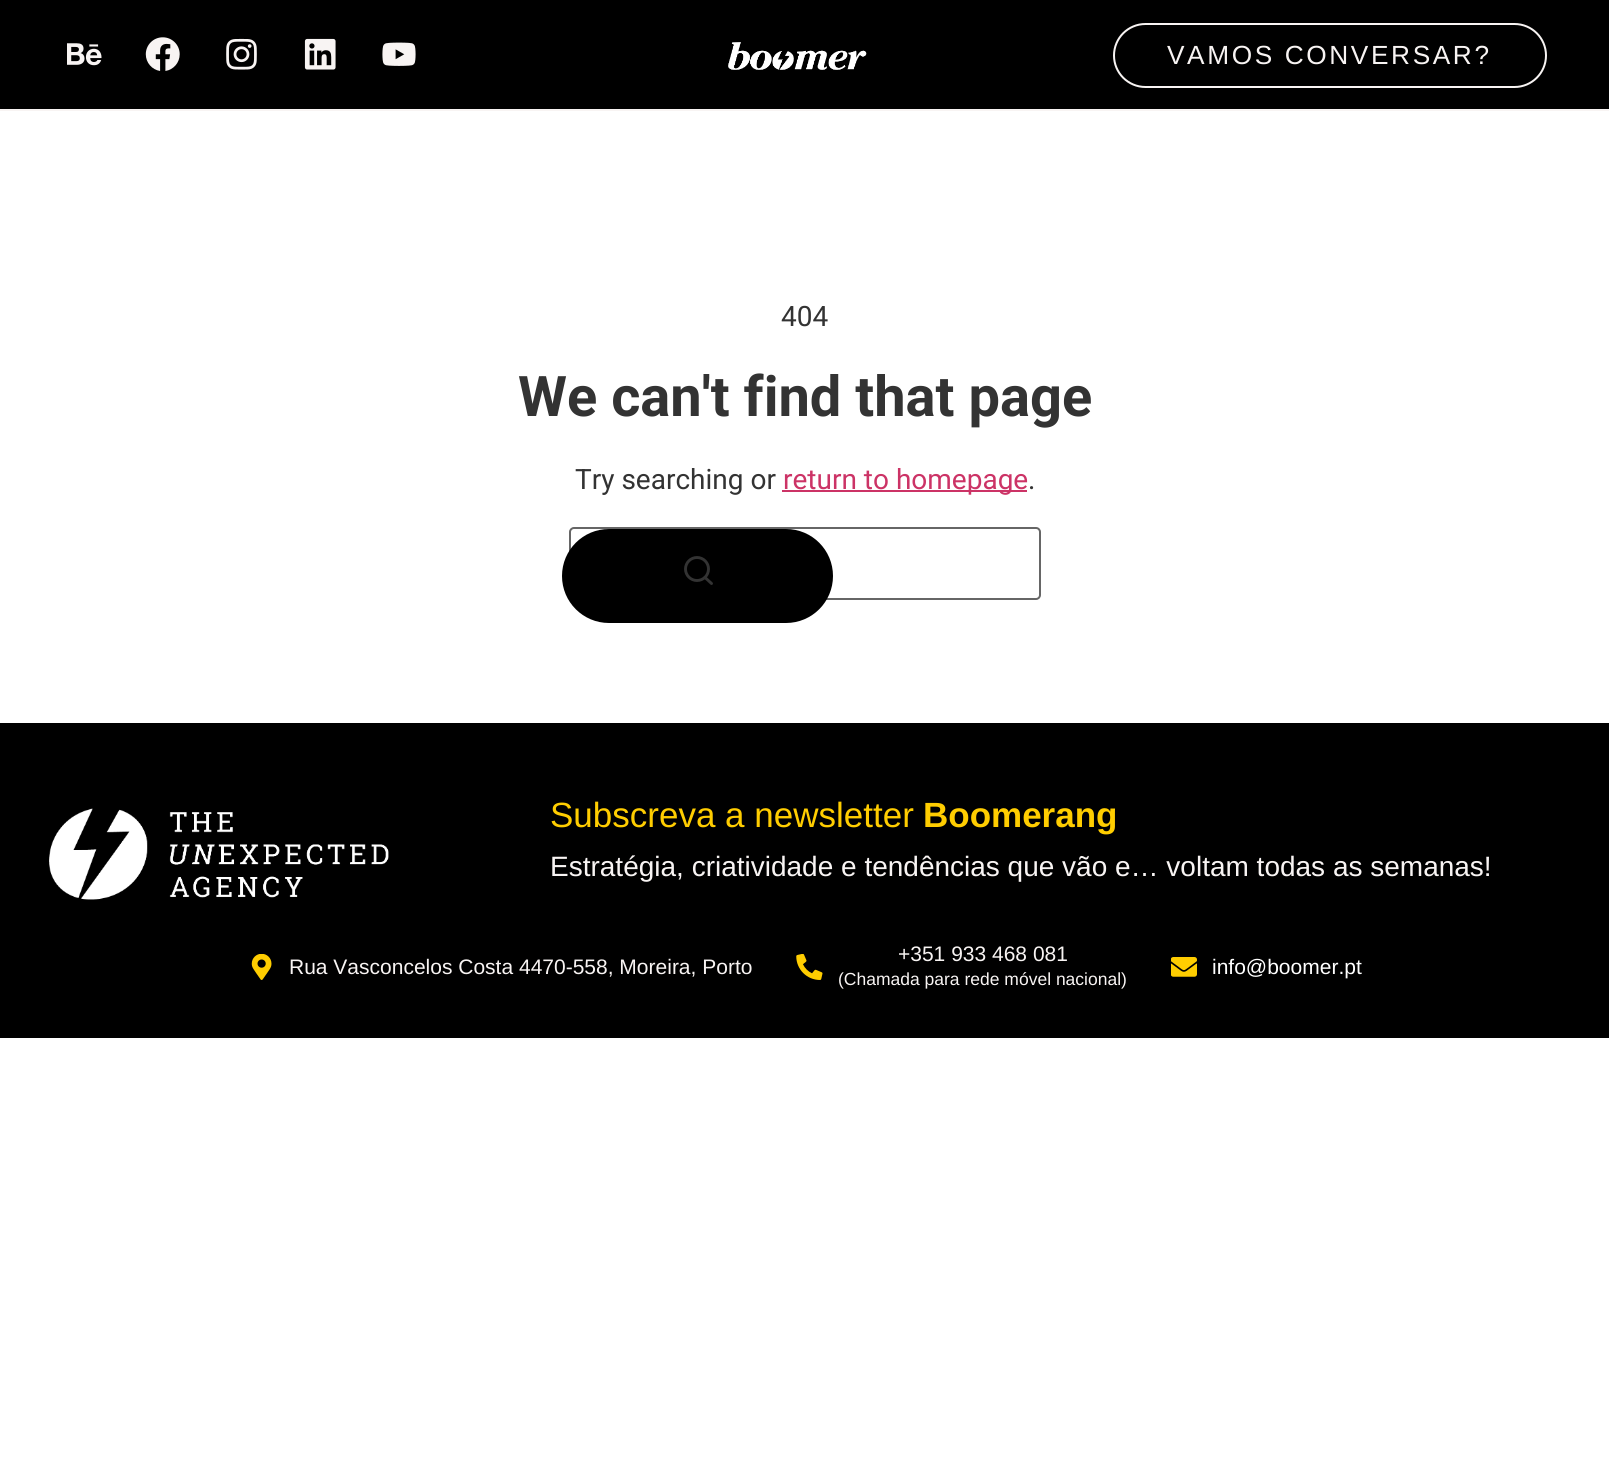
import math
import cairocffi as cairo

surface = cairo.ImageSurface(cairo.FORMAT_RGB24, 1609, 1464)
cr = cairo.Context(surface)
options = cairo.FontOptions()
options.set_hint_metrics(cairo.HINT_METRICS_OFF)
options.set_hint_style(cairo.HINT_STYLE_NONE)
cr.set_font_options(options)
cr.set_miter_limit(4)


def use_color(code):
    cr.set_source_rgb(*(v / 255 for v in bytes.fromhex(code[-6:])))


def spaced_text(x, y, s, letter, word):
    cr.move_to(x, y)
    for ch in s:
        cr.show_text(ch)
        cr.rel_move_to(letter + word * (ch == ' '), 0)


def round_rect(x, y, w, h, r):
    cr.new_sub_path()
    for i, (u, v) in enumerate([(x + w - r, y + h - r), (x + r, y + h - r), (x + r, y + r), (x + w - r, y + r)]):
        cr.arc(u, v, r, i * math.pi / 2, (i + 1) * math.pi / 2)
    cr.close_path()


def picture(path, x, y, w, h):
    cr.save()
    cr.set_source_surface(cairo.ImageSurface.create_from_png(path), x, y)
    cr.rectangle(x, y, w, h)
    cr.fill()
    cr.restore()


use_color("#ffffff")
cr.paint()
use_color("#000000")
cr.rectangle(0, 0, 1609, 109)
cr.fill()
use_color("#f8f4f3")
cr.rectangle(0, 109, 1609, 2)
cr.fill()
picture("img1.png", 67, 43, 35, 23)
picture("img2.png", 145, 37, 35, 34)
picture("img3.png", 226, 38, 31, 32)
picture("img4.png", 304, 38, 32, 32)
picture("img5.png", 382, 42, 34, 24)
picture("img6.png", 728, 42, 139, 28)
round_rect(1114, 24, 432, 63, 31.5)
cr.stroke()
cr.select_font_face("Liberation Sans")
cr.set_font_size(26.25)
spaced_text(1167, 64, "VAMOS CONVERSAR?", 2.6, 0)
cr.select_font_face("Roboto")
cr.set_font_size(28)
use_color("#333333")
cr.move_to(781, 326)
cr.show_text("404")
cr.select_font_face("Roboto", cairo.FONT_SLANT_NORMAL, cairo.FONT_WEIGHT_BOLD)
cr.set_font_size(56)
cr.move_to(518, 416)
cr.show_text("We can't find that page")
cr.select_font_face("Roboto")
cr.set_font_size(28)
cr.move_to(575, 489)
cr.show_text("Try searching or")
use_color("#cc3366")
cr.rectangle(782, 490, 245, 2)
cr.fill()
cr.move_to(783, 489)
cr.show_text("return to homepage")
use_color("#333333")
cr.move_to(1028, 489)
cr.show_text(".")
round_rect(570, 528, 470, 71, 4)
use_color("#666666")
cr.stroke()
use_color("#000000")
round_rect(562, 529, 271, 94, 47)
cr.fill()
cr.arc(697, 569, 11.5, 0, 2 * math.pi)
use_color("#333333")
cr.set_line_width(2.9)
cr.stroke()
cr.new_path()
cr.move_to(711.5, 583.5)
cr.line_to(705, 577.5)
cr.set_line_cap(cairo.LINE_CAP_ROUND)
cr.set_line_join(cairo.LINE_JOIN_ROUND)
cr.stroke()
use_color("#000000")
cr.rectangle(0, 723, 1609, 315)
cr.fill()
picture("img7.png", 49, 808, 340, 92)
cr.select_font_face("Liberation Sans")
cr.set_font_size(35)
use_color("#ffcd00")
cr.move_to(550, 827)
cr.show_text("Subscreva a newsletter")
cr.select_font_face("Liberation Sans", cairo.FONT_SLANT_NORMAL, cairo.FONT_WEIGHT_BOLD)
cr.move_to(923, 827)
cr.show_text("Boomerang")
cr.select_font_face("Liberation Sans")
cr.set_font_size(28)
use_color("#f8f4f3")
cr.move_to(550, 876)
cr.show_text("Estratégia, criatividade e tendências que vão e… voltam todas as semanas!")
picture("img8.png", 251, 954, 21, 26)
cr.set_font_size(21)
cr.move_to(289, 974)
cr.show_text("Rua Vasconcelos Costa 4470-558, Moreira, Porto")
picture("img9.png", 796, 954, 27, 26)
cr.move_to(898, 961)
cr.show_text("+351 933 468 081")
cr.set_font_size(17.5)
cr.move_to(838, 985)
cr.show_text("(Chamada para rede móvel nacional)")
picture("img10.png", 1171, 957, 26, 20)
cr.set_font_size(21)
use_color("#ffffff")
cr.move_to(1212, 974)
cr.show_text("info@boomer.pt")
surface.write_to_png("result.png")
